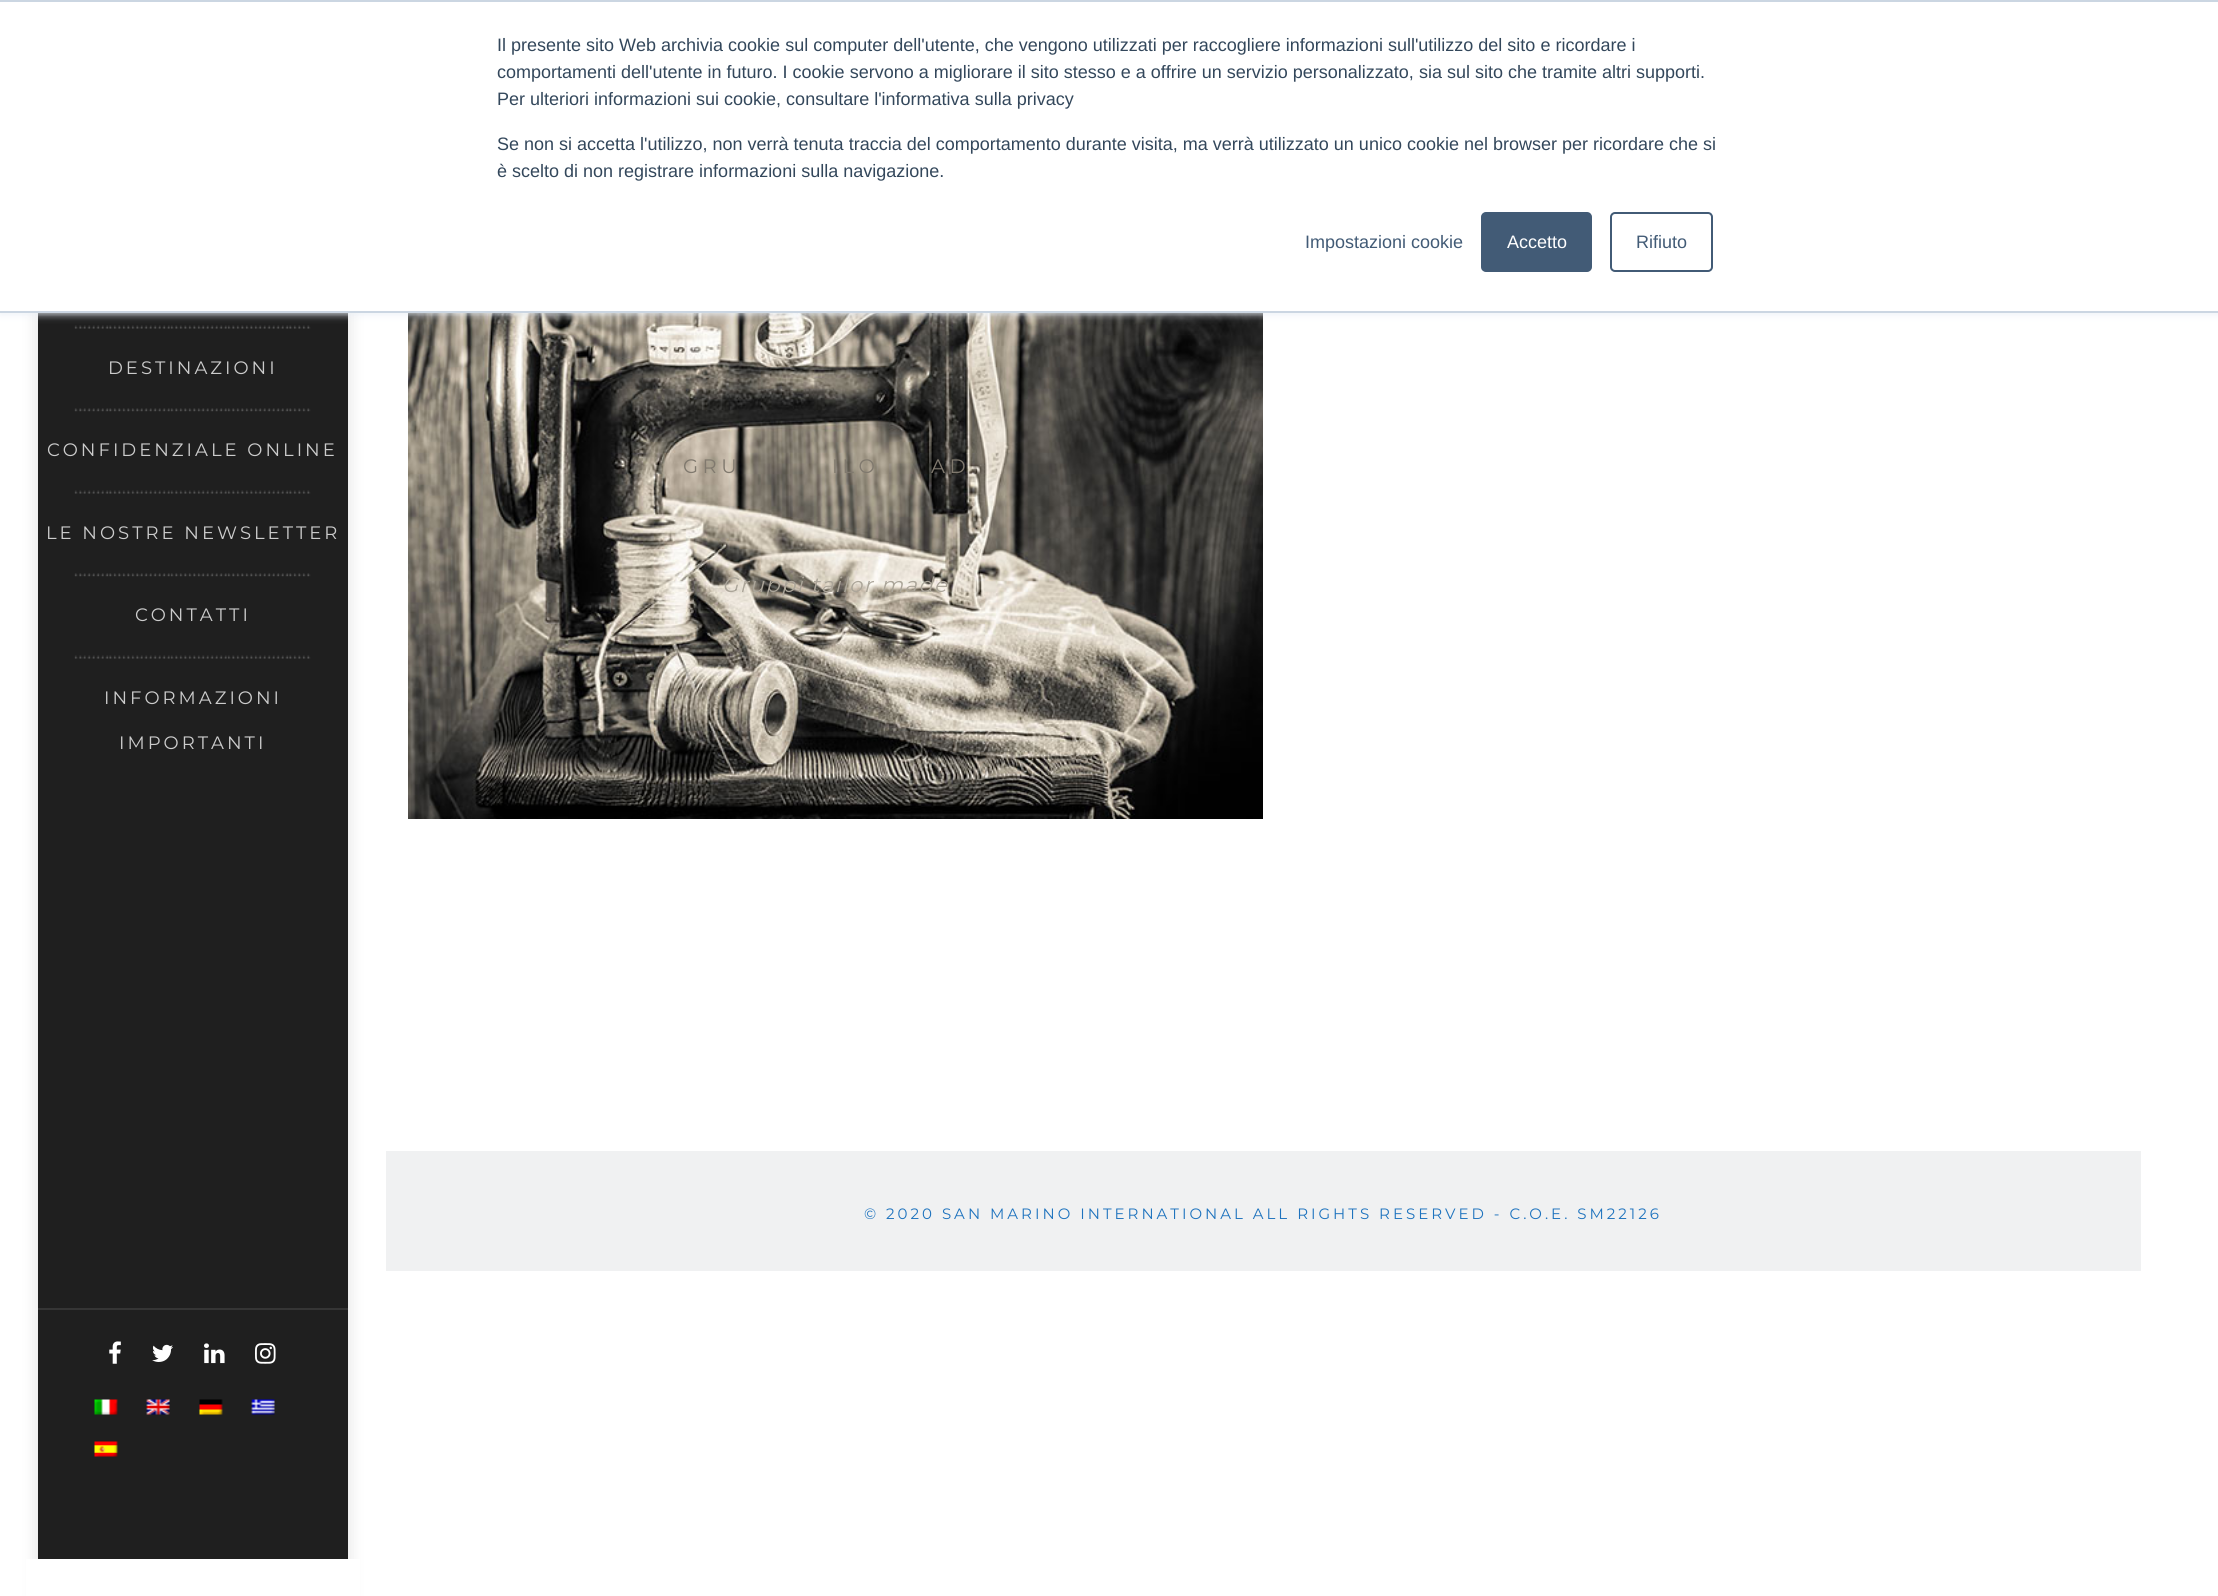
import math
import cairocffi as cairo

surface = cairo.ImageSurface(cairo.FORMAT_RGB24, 2218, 1596)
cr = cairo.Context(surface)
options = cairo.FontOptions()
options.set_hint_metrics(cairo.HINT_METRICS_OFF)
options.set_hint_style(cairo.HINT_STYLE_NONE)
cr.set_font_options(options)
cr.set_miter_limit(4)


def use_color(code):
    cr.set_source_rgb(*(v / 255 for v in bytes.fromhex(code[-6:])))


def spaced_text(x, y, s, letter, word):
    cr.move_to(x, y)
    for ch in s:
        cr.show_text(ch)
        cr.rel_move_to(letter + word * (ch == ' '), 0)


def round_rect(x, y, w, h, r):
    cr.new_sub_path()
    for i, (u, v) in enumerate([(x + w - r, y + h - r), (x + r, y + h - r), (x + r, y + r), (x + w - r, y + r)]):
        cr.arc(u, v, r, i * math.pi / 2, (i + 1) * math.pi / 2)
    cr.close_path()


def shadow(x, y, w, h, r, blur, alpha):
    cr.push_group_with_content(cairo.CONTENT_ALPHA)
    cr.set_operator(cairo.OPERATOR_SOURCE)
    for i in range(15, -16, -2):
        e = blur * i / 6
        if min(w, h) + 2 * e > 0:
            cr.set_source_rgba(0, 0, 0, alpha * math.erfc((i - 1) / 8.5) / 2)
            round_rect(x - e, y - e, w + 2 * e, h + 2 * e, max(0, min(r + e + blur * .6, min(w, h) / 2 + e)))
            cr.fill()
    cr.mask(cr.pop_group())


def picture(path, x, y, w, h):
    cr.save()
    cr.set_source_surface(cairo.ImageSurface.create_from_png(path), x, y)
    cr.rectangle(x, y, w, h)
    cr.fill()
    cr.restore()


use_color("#ffffff")
cr.paint()
use_color("#000000")
shadow(36, 36, 314, 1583, 0, 7.5, 0.1)
use_color("#1f1f1f")
cr.rectangle(38, 313, 310, 1246)
cr.fill()
picture("img1.png", 74, 325, 237, 4)
picture("img12.png", 408, 313, 855, 506)
use_color("#eaf0f6")
shadow(0, 2, 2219, 312, 0, 4, 1)
use_color("#ffffff")
cr.rectangle(0, 2, 2218, 309)
cr.fill()
use_color("#cbd6e2")
cr.rectangle(0, 0, 2218, 2)
cr.fill()
cr.rectangle(0, 311, 2218, 2)
cr.fill()
cr.select_font_face("Liberation Sans")
cr.set_font_size(18)
use_color("#33475b")
cr.move_to(497, 51)
cr.show_text("Il presente sito Web archivia cookie sul computer dell'utente, che vengono utilizzati per raccogliere informazioni sull'utilizzo del sito e ricordare i")
cr.move_to(497, 78)
cr.show_text("comportamenti dell'utente in futuro. I cookie servono a migliorare il sito stesso e a offrire un servizio personalizzato, sia sul sito che tramite altri supporti.")
cr.move_to(497, 105)
cr.show_text("Per ulteriori informazioni sui cookie, consultare l'informativa sulla privacy")
cr.move_to(497, 150)
cr.show_text("Se non si accetta l'utilizzo, non verrà tenuta traccia del comportamento durante visita, ma verrà utilizzato un unico cookie nel browser per ricordare che si")
cr.move_to(497, 177)
cr.show_text("è scelto di non registrare informazioni sulla navigazione.")
use_color("#425b76")
cr.move_to(1305, 248)
cr.show_text("Impostazioni cookie")
round_rect(1482, 213, 109, 58, 4)
cr.fill_preserve()
cr.stroke()
use_color("#ffffff")
cr.move_to(1507, 248)
cr.show_text("Accetto")
round_rect(1611, 213, 101, 58, 4)
use_color("#425b76")
cr.stroke()
cr.move_to(1636, 248)
cr.show_text("Rifiuto")
cr.select_font_face("Montserrat")
use_color("#cccccc")
spaced_text(108, 374, "DESTINAZIONI", 3, 0)
picture("img2.png", 74, 408, 237, 4)
spaced_text(47, 456, "CONFIDENZIALE ONLINE", 3, 0)
picture("img1.png", 74, 490, 237, 4)
spaced_text(46, 539, "LE NOSTRE NEWSLETTER", 3, 0)
picture("img2.png", 74, 573, 237, 4)
spaced_text(135, 621, "CONTATTI", 3, 0)
picture("img1.png", 74, 655, 237, 4)
spaced_text(104, 704, "INFORMAZIONI", 3, 0)
spaced_text(119, 749, "IMPORTANTI", 3, 0)
use_color("#353535")
cr.rectangle(38, 1308, 310, 2)
cr.fill()
picture("img3.png", 109, 1341, 12, 23)
picture("img4.png", 152, 1344, 21, 18)
picture("img5.png", 204, 1343, 21, 21)
picture("img6.png", 255, 1343, 21, 21)
picture("img7.png", 94, 1399, 24, 16)
picture("img8.png", 146, 1399, 24, 16)
picture("img9.png", 199, 1399, 24, 16)
picture("img10.png", 251, 1399, 24, 16)
picture("img11.png", 94, 1441, 24, 16)
cr.set_font_size(19.5)
use_color("#80796e")
spaced_text(683, 473, "GRU", 4.5, 0)
spaced_text(832, 473, "ILO", 4.5, 0)
spaced_text(931, 473, "AD", 4.5, 0)
cr.select_font_face("Montserrat", cairo.FONT_SLANT_ITALIC)
cr.set_font_size(21)
use_color("#aba599")
spaced_text(722, 592, "Gruppi tailor made", 1.5, 0)
use_color("#f0f1f2")
cr.rectangle(386, 1151, 1755, 120)
cr.fill()
cr.select_font_face("Montserrat")
cr.set_font_size(15)
use_color("#1e73be")
spaced_text(864, 1219, "© 2020 SAN MARINO INTERNATIONAL ALL RIGHTS RESERVED - C.O.E. SM22126", 3, 0)
use_color("#ffffff")
cr.rectangle(26, 1559, 334, 37)
cr.fill()
surface.write_to_png("result.png")
